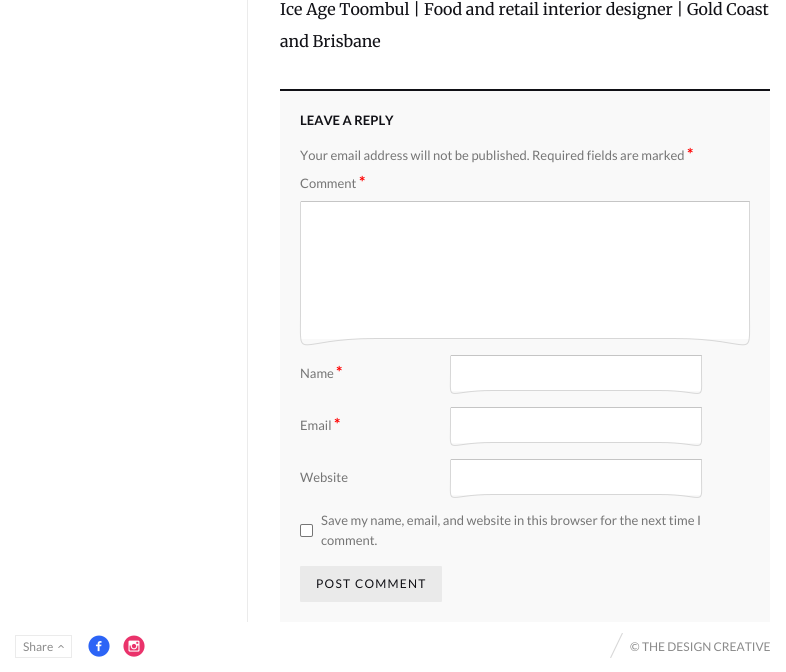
import math
import cairocffi as cairo

surface = cairo.ImageSurface(cairo.FORMAT_RGB24, 786, 672)
cr = cairo.Context(surface)
options = cairo.FontOptions()
options.set_hint_metrics(cairo.HINT_METRICS_OFF)
options.set_hint_style(cairo.HINT_STYLE_NONE)
cr.set_font_options(options)
cr.set_miter_limit(4)


def use_color(code):
    cr.set_source_rgb(*(v / 255 for v in bytes.fromhex(code[-6:])))


def spaced_text(x, y, s, letter, word):
    cr.move_to(x, y)
    for ch in s:
        cr.show_text(ch)
        cr.rel_move_to(letter + word * (ch == ' '), 0)


def round_rect(x, y, w, h, r):
    cr.new_sub_path()
    for i, (u, v) in enumerate([(x + w - r, y + h - r), (x + r, y + h - r), (x + r, y + r), (x + w - r, y + r)]):
        cr.arc(u, v, r, i * math.pi / 2, (i + 1) * math.pi / 2)
    cr.close_path()


def picture(path, x, y, w, h):
    cr.save()
    cr.set_source_surface(cairo.ImageSurface.create_from_png(path), x, y)
    cr.rectangle(x, y, w, h)
    cr.fill()
    cr.restore()


use_color("#ffffff")
cr.paint()
use_color("#ebebeb")
cr.rectangle(247, 0, 1, 622)
cr.fill()
cr.select_font_face("Merriweather Light")
cr.set_font_size(16)
use_color("#111116")
cr.move_to(280, 15)
cr.show_text("Ice Age Toombul | Food and retail interior designer | Gold Coast")
cr.move_to(280, 47)
cr.show_text("and Brisbane")
use_color("#f9f9f9")
cr.rectangle(280, 91, 490, 531)
cr.fill()
use_color("#111116")
cr.rectangle(280, 89, 490, 2)
cr.fill()
cr.select_font_face("Lato", cairo.FONT_SLANT_NORMAL, cairo.FONT_WEIGHT_BOLD)
cr.set_font_size(13)
cr.move_to(300, 125)
cr.show_text("LEAVE A REPLY")
cr.select_font_face("Lato")
use_color("#757575")
cr.move_to(300, 160)
cr.show_text("Your email address will not be published. Required fields are marked")
cr.select_font_face("Lato", cairo.FONT_SLANT_NORMAL, cairo.FONT_WEIGHT_BOLD)
cr.set_font_size(16)
use_color("#ff0000")
cr.move_to(687, 160)
cr.show_text("*")
cr.select_font_face("Lato")
cr.set_font_size(13)
use_color("#757575")
cr.move_to(300, 188)
cr.show_text("Comment")
cr.select_font_face("Lato", cairo.FONT_SLANT_NORMAL, cairo.FONT_WEIGHT_BOLD)
cr.set_font_size(16)
use_color("#ff0000")
cr.move_to(359, 188)
cr.show_text("*")
use_color("#ffffff")
round_rect(300, 201, 450, 138, 1)
cr.fill()
use_color("#c5c5c5")
cr.rectangle(301, 201, 449, 1)
cr.fill()
cr.new_path()
cr.move_to(749.5, 201.5)
cr.line_to(749.5, 315.5)
cr.curve_to(749.5, 363, 755.5, 338.5, 674.5, 338.5)
cr.line_to(375.5, 338.5)
cr.curve_to(294.5, 338.5, 300.5, 363, 300.5, 315.5)
cr.line_to(300.5, 201.5)
use_color("#d7d7d7")
cr.set_line_width(1)
cr.stroke()
cr.select_font_face("Lato")
cr.set_font_size(13)
use_color("#757575")
cr.move_to(300, 378)
cr.show_text("Name")
cr.select_font_face("Lato", cairo.FONT_SLANT_NORMAL, cairo.FONT_WEIGHT_BOLD)
cr.set_font_size(16)
use_color("#ff0000")
cr.move_to(336, 378)
cr.show_text("*")
use_color("#ffffff")
round_rect(450, 355, 252, 36, 1)
cr.fill()
use_color("#c5c5c5")
cr.rectangle(451, 355, 251, 1)
cr.fill()
cr.new_path()
cr.move_to(701.5, 355.5)
cr.line_to(701.5, 373)
cr.curve_to(701.5, 404, 706.5, 390.5, 659.5, 390.5)
cr.line_to(492.5, 390.5)
cr.curve_to(445.5, 390.5, 450.5, 404, 450.5, 373)
cr.line_to(450.5, 355.5)
use_color("#d7d7d7")
cr.stroke()
cr.select_font_face("Lato")
cr.set_font_size(13)
use_color("#757575")
cr.move_to(300, 430)
cr.show_text("Email")
cr.select_font_face("Lato", cairo.FONT_SLANT_NORMAL, cairo.FONT_WEIGHT_BOLD)
cr.set_font_size(16)
use_color("#ff0000")
cr.move_to(334, 430)
cr.show_text("*")
use_color("#ffffff")
round_rect(450, 407, 252, 36, 1)
cr.fill()
use_color("#c5c5c5")
cr.rectangle(451, 407, 251, 1)
cr.fill()
cr.new_path()
cr.move_to(701.5, 407.5)
cr.line_to(701.5, 425)
cr.curve_to(701.5, 456, 706.5, 442.5, 659.5, 442.5)
cr.line_to(492.5, 442.5)
cr.curve_to(445.5, 442.5, 450.5, 456, 450.5, 425)
cr.line_to(450.5, 407.5)
use_color("#d7d7d7")
cr.stroke()
cr.select_font_face("Lato")
cr.set_font_size(13)
use_color("#757575")
cr.move_to(300, 482)
cr.show_text("Website")
use_color("#ffffff")
round_rect(450, 459, 252, 36, 1)
cr.fill()
use_color("#c5c5c5")
cr.rectangle(451, 459, 251, 1)
cr.fill()
cr.new_path()
cr.move_to(701.5, 459.5)
cr.line_to(701.5, 477)
cr.curve_to(701.5, 508, 706.5, 494.5, 659.5, 494.5)
cr.line_to(492.5, 494.5)
cr.curve_to(445.5, 494.5, 450.5, 508, 450.5, 477)
cr.line_to(450.5, 459.5)
use_color("#d7d7d7")
cr.stroke()
use_color("#ffffff")
round_rect(300.5, 524.5, 12, 12, 1.5)
cr.fill_preserve()
use_color("#767676")
cr.stroke()
use_color("#757575")
cr.move_to(321, 525)
cr.show_text("Save my name, email, and website in this browser for the next time I")
cr.move_to(321, 545)
cr.show_text("comment.")
use_color("#eaeaea")
round_rect(300, 566, 142, 36, 1)
cr.fill()
cr.set_font_size(12)
use_color("#111116")
spaced_text(316, 588, "POST COMMENT", 1.25, 0)
cr.rectangle(15.5, 635.5, 56, 22)
use_color("#ebebeb")
cr.stroke()
use_color("#8a8a8a")
cr.move_to(23, 651)
cr.show_text("Share")
picture("img1.png", 58, 645, 6, 3)
picture("img2.png", 88, 635, 22, 22)
picture("img3.png", 123, 635, 22, 22)
picture("img4.png", 610, 633, 13, 25)
cr.move_to(630, 651)
cr.show_text("© THE DESIGN CREATIVE")
surface.write_to_png("result.png")
